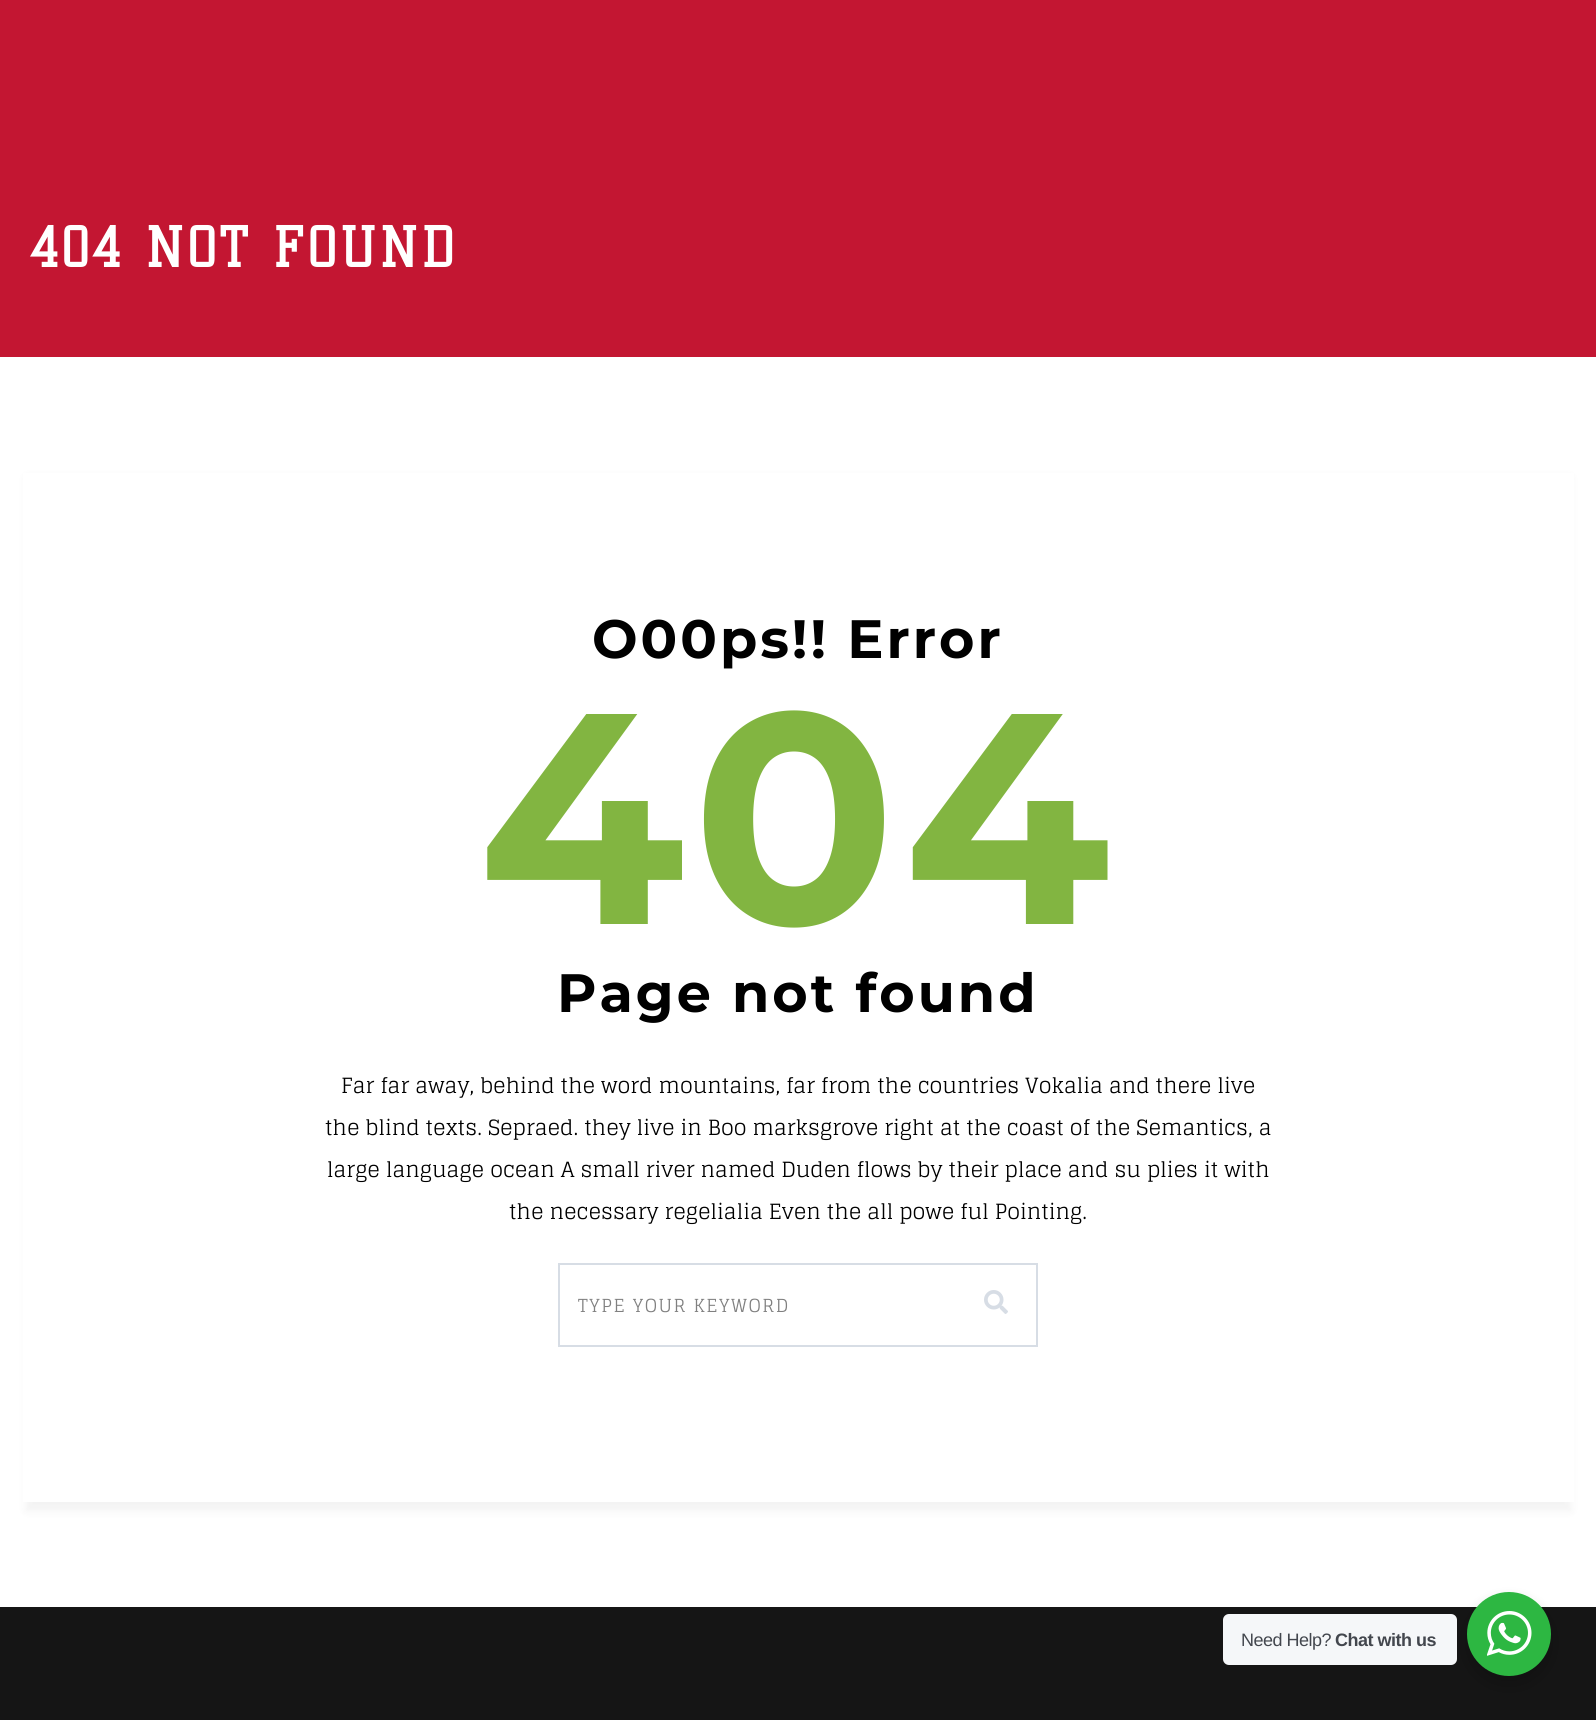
import math
import cairocffi as cairo

surface = cairo.ImageSurface(cairo.FORMAT_RGB24, 1596, 1720)
cr = cairo.Context(surface)
options = cairo.FontOptions()
options.set_hint_metrics(cairo.HINT_METRICS_OFF)
options.set_hint_style(cairo.HINT_STYLE_NONE)
cr.set_font_options(options)
cr.set_miter_limit(4)


def use_color(code):
    cr.set_source_rgb(*(v / 255 for v in bytes.fromhex(code[-6:])))


def spaced_text(x, y, s, letter, word):
    cr.move_to(x, y)
    for ch in s:
        cr.show_text(ch)
        cr.rel_move_to(letter + word * (ch == ' '), 0)


def round_rect(x, y, w, h, r):
    cr.new_sub_path()
    for i, (u, v) in enumerate([(x + w - r, y + h - r), (x + r, y + h - r), (x + r, y + r), (x + w - r, y + r)]):
        cr.arc(u, v, r, i * math.pi / 2, (i + 1) * math.pi / 2)
    cr.close_path()


def shadow(x, y, w, h, r, blur, alpha):
    cr.push_group_with_content(cairo.CONTENT_ALPHA)
    cr.set_operator(cairo.OPERATOR_SOURCE)
    for i in range(15, -16, -2):
        e = blur * i / 6
        if min(w, h) + 2 * e > 0:
            cr.set_source_rgba(0, 0, 0, alpha * math.erfc((i - 1) / 8.5) / 2)
            round_rect(x - e, y - e, w + 2 * e, h + 2 * e, max(0, min(r + e + blur * .6, min(w, h) / 2 + e)))
            cr.fill()
    cr.mask(cr.pop_group())


def picture(path, x, y, w, h):
    cr.save()
    cr.set_source_surface(cairo.ImageSurface.create_from_png(path), x, y)
    cr.rectangle(x, y, w, h)
    cr.fill()
    cr.restore()


use_color("#c31632")
cr.paint()
cr.select_font_face("Kelly Slab", cairo.FONT_SLANT_NORMAL, cairo.FONT_WEIGHT_BOLD)
cr.set_font_size(54)
use_color("#ffffff")
spaced_text(30, 267, "404 NOT FOUND", 3, 0)
cr.rectangle(0, 357, 1596, 1250)
cr.fill()
use_color("#000000")
shadow(26, 477, 1545, 1034, 0, 4.5, 0.05)
use_color("#ffffff")
cr.rectangle(23, 473, 1551, 1029)
cr.fill()
cr.select_font_face("Montserrat", cairo.FONT_SLANT_NORMAL, cairo.FONT_WEIGHT_BOLD)
use_color("#000000")
spaced_text(592, 658, "O00ps!! Error", 3, 0)
cr.set_font_size(300)
use_color("#82b541")
spaced_text(478, 924, "404", 7.5, 0)
cr.set_font_size(54)
use_color("#000000")
spaced_text(557, 1012, "Page not found", 3, 0)
cr.select_font_face("Glegoo")
cr.set_font_size(21)
cr.move_to(341, 1093)
cr.show_text("Far far away, behind the word mountains, far from the countries Vokalia and there live")
cr.move_to(325, 1135)
cr.show_text("the blind texts. Sepraed. they live in Boo marksgrove right at the coast of the Semantics, a")
cr.move_to(327, 1177)
cr.show_text("large language ocean A small river named Duden flows by their place and su plies it with")
cr.move_to(509, 1219)
cr.show_text("the necessary regelialia Even the all powe ful Pointing.")
cr.rectangle(559, 1264, 478, 82)
use_color("#d7dde5")
cr.stroke()
cr.save()
cr.rectangle(578, 1290, 417, 32)
cr.clip()
cr.set_font_size(18)
use_color("#808080")
spaced_text(578, 1312, "TYPE YOUR KEYWORD", 1.5, 0)
cr.restore()
picture("img1.png", 984, 1290, 24, 24)
use_color("#151515")
cr.rectangle(0, 1607, 1596, 113)
cr.fill()
use_color("#000000")
shadow(1464, 1598, 90, 90, 45, 6, 0.14)
use_color("#f5f7f9")
round_rect(1223, 1614, 234, 51, 6)
cr.fill()
cr.select_font_face("Liberation Sans")
cr.set_font_size(18)
use_color("#43474e")
spaced_text(1241, 1646, "Need Help?", -0.5, 0)
cr.select_font_face("Liberation Sans", cairo.FONT_SLANT_NORMAL, cairo.FONT_WEIGHT_BOLD)
spaced_text(1335, 1646, "Chat with us", -0.5, 0)
use_color("#2db742")
cr.new_path()
cr.arc(1509, 1634, 42, 0, 2 * math.pi)
cr.fill()
picture("img2.png", 1487, 1611, 45, 45)
surface.write_to_png("result.png")
